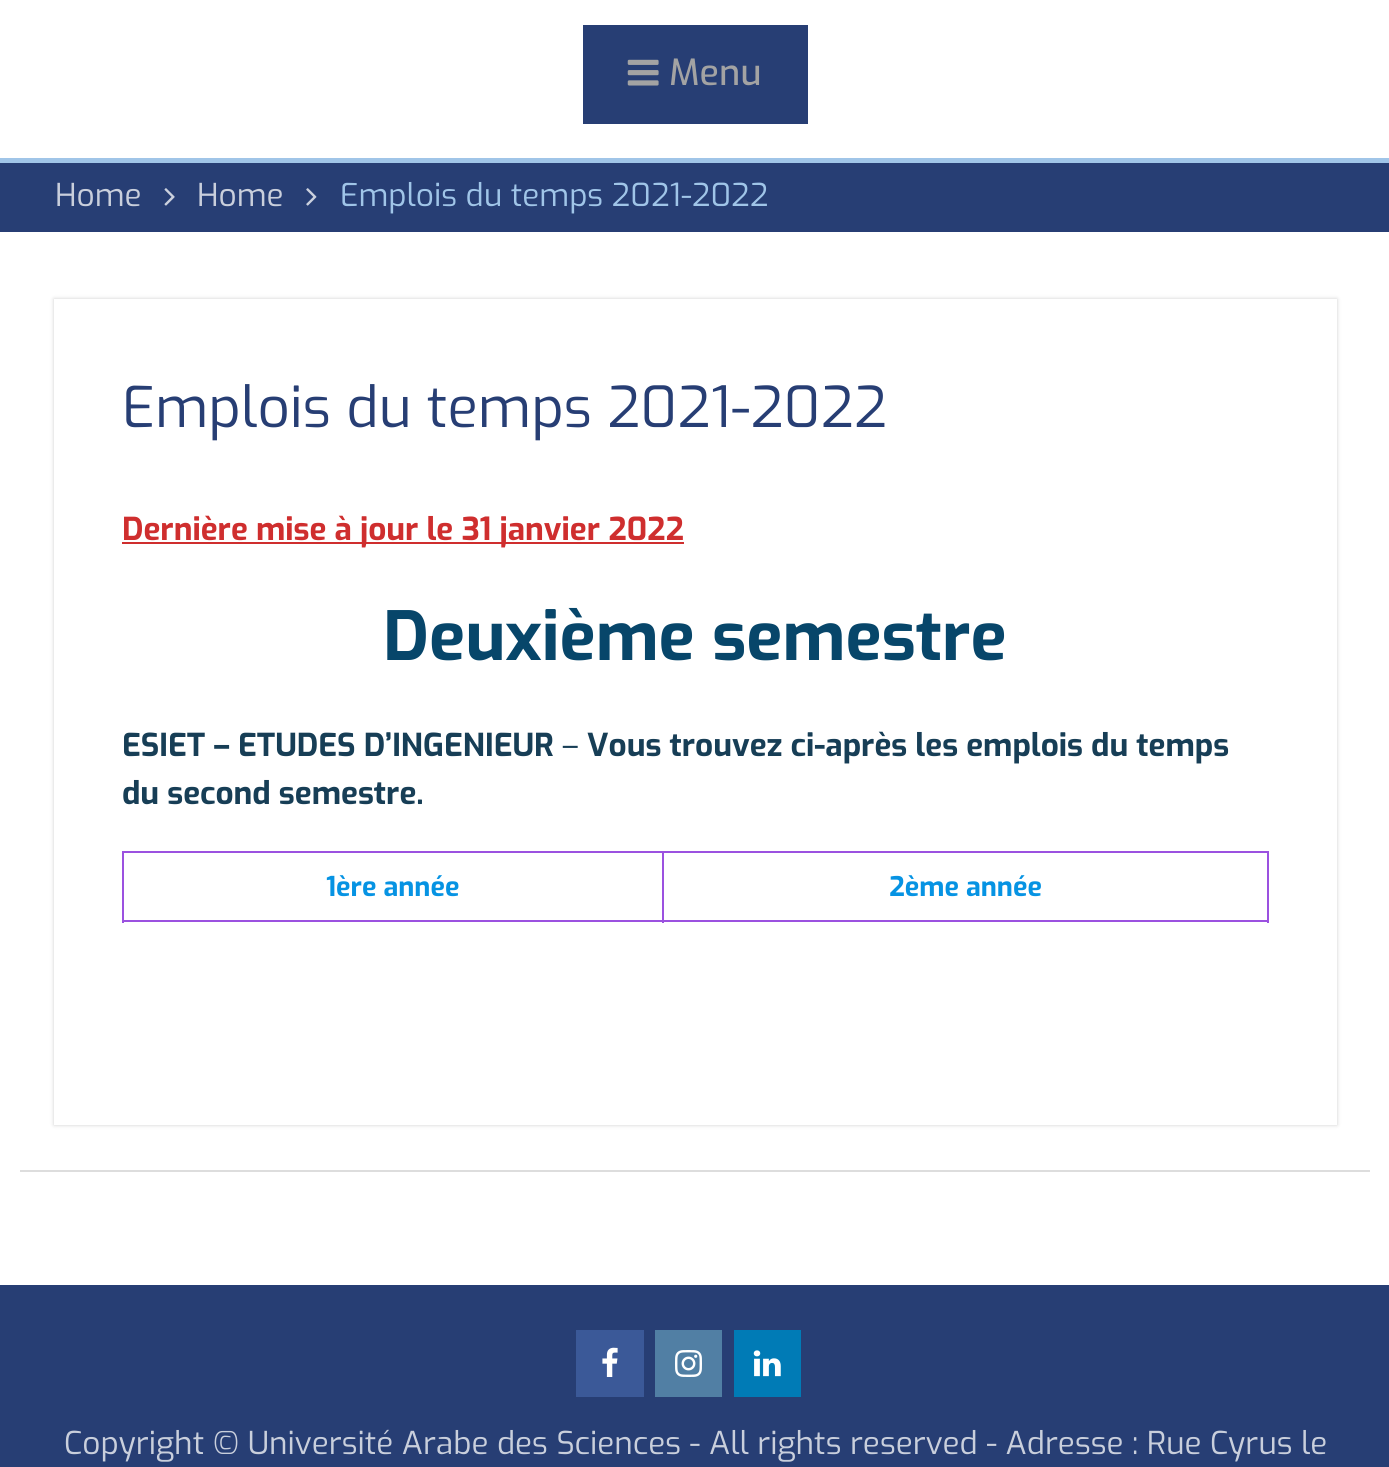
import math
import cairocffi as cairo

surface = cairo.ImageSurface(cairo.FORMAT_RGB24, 1389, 1467)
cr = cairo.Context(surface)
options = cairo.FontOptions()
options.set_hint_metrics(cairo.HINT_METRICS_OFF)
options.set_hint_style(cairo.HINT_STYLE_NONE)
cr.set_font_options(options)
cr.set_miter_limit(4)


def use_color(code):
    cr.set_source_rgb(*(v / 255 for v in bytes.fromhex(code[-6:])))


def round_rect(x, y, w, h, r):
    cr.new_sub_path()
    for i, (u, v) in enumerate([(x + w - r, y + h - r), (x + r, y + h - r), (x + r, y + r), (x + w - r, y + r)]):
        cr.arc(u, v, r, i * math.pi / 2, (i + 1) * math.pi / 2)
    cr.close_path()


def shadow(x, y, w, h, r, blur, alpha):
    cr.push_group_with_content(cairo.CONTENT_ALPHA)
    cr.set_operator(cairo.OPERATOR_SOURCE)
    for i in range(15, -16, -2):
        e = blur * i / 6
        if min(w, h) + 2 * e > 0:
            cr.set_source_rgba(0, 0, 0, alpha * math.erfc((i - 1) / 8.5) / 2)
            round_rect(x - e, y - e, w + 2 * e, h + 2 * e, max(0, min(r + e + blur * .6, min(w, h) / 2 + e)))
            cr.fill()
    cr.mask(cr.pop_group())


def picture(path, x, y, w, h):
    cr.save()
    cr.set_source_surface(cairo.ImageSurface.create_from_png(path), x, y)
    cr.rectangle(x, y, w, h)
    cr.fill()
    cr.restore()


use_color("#ffffff")
cr.paint()
use_color("#273e74")
cr.rectangle(583, 25, 225, 99)
cr.fill()
picture("img1.png", 627, 59, 32, 27)
cr.select_font_face("Exo Medium")
cr.set_font_size(36)
use_color("#a3a3a3")
cr.move_to(669, 85)
cr.show_text("Menu")
use_color("#273e74")
cr.rectangle(0, 163, 1389, 69)
cr.fill()
use_color("#a0c5e8")
cr.rectangle(0, 158, 1389, 5)
cr.fill()
cr.select_font_face("Exo")
cr.set_font_size(31.5)
use_color("#c9cfdc")
cr.move_to(55, 206)
cr.show_text("Home")
picture("img2.png", 164, 188, 11, 18)
cr.move_to(197, 206)
cr.show_text("Home")
picture("img3.png", 306, 188, 11, 18)
use_color("#a0c5e8")
cr.move_to(340, 206)
cr.show_text("Emplois du temps 2021-2022")
use_color("#dddddd")
cr.rectangle(20, 1170, 1350, 2)
cr.fill()
use_color("#cfcfcf")
shadow(54, 299, 1283, 826, 0, 2, 1)
use_color("#ffffff")
cr.rectangle(54, 299, 1283, 826)
cr.fill()
cr.set_font_size(56.25)
use_color("#273e74")
cr.move_to(122, 427)
cr.show_text("Emplois du temps 2021-2022")
use_color("#cf2e2e")
cr.rectangle(122, 542, 562, 2)
cr.fill()
cr.select_font_face("Exo", cairo.FONT_SLANT_NORMAL, cairo.FONT_WEIGHT_BOLD)
cr.set_font_size(31.5)
cr.move_to(122, 540)
cr.show_text("Dernière mise à jour le 31 janvier 2022")
cr.set_font_size(67.5)
use_color("#07466a")
cr.move_to(383, 660)
cr.show_text("Deuxième semestre")
cr.set_font_size(31.5)
use_color("#173e56")
cr.move_to(122, 756)
cr.show_text("ESIET – ETUDES D’INGENIEUR")
cr.select_font_face("Exo")
cr.move_to(562, 756)
cr.show_text("–")
cr.select_font_face("Exo", cairo.FONT_SLANT_NORMAL, cairo.FONT_WEIGHT_BOLD)
cr.move_to(587, 756)
cr.show_text("Vous trouvez ci-après les emplois du temps")
cr.move_to(122, 804)
cr.show_text("du second semestre.")
use_color("#9b51e0")
cr.rectangle(662, 851, 607, 2)
cr.fill()
cr.rectangle(1267, 851, 2, 72)
cr.fill()
cr.rectangle(662, 920, 607, 2)
cr.fill()
cr.rectangle(662, 851, 2, 72)
cr.fill()
cr.rectangle(122, 851, 542, 2)
cr.fill()
cr.rectangle(122, 920, 542, 2)
cr.fill()
cr.rectangle(122, 851, 2, 72)
cr.fill()
cr.set_font_size(27)
use_color("#0693e3")
cr.move_to(326, 896)
cr.show_text("1ère année")
cr.move_to(889, 896)
cr.show_text("2ème année")
use_color("#273e74")
cr.rectangle(0, 1285, 1389, 182)
cr.fill()
use_color("#3b5998")
cr.rectangle(576, 1330, 68, 67)
cr.fill()
picture("img4.png", 602, 1347, 16, 30)
use_color("#517fa4")
cr.rectangle(655, 1330, 67, 67)
cr.fill()
picture("img5.png", 675, 1350, 27, 27)
use_color("#007bb6")
cr.rectangle(734, 1330, 67, 67)
cr.fill()
picture("img6.png", 753, 1350, 28, 27)
cr.select_font_face("Exo")
cr.set_font_size(31.5)
use_color("#c9cfdc")
cr.move_to(64, 1454)
cr.show_text("Copyright © Université Arabe des Sciences - All rights reserved - Adresse : Rue Cyrus le")
surface.write_to_png("result.png")
